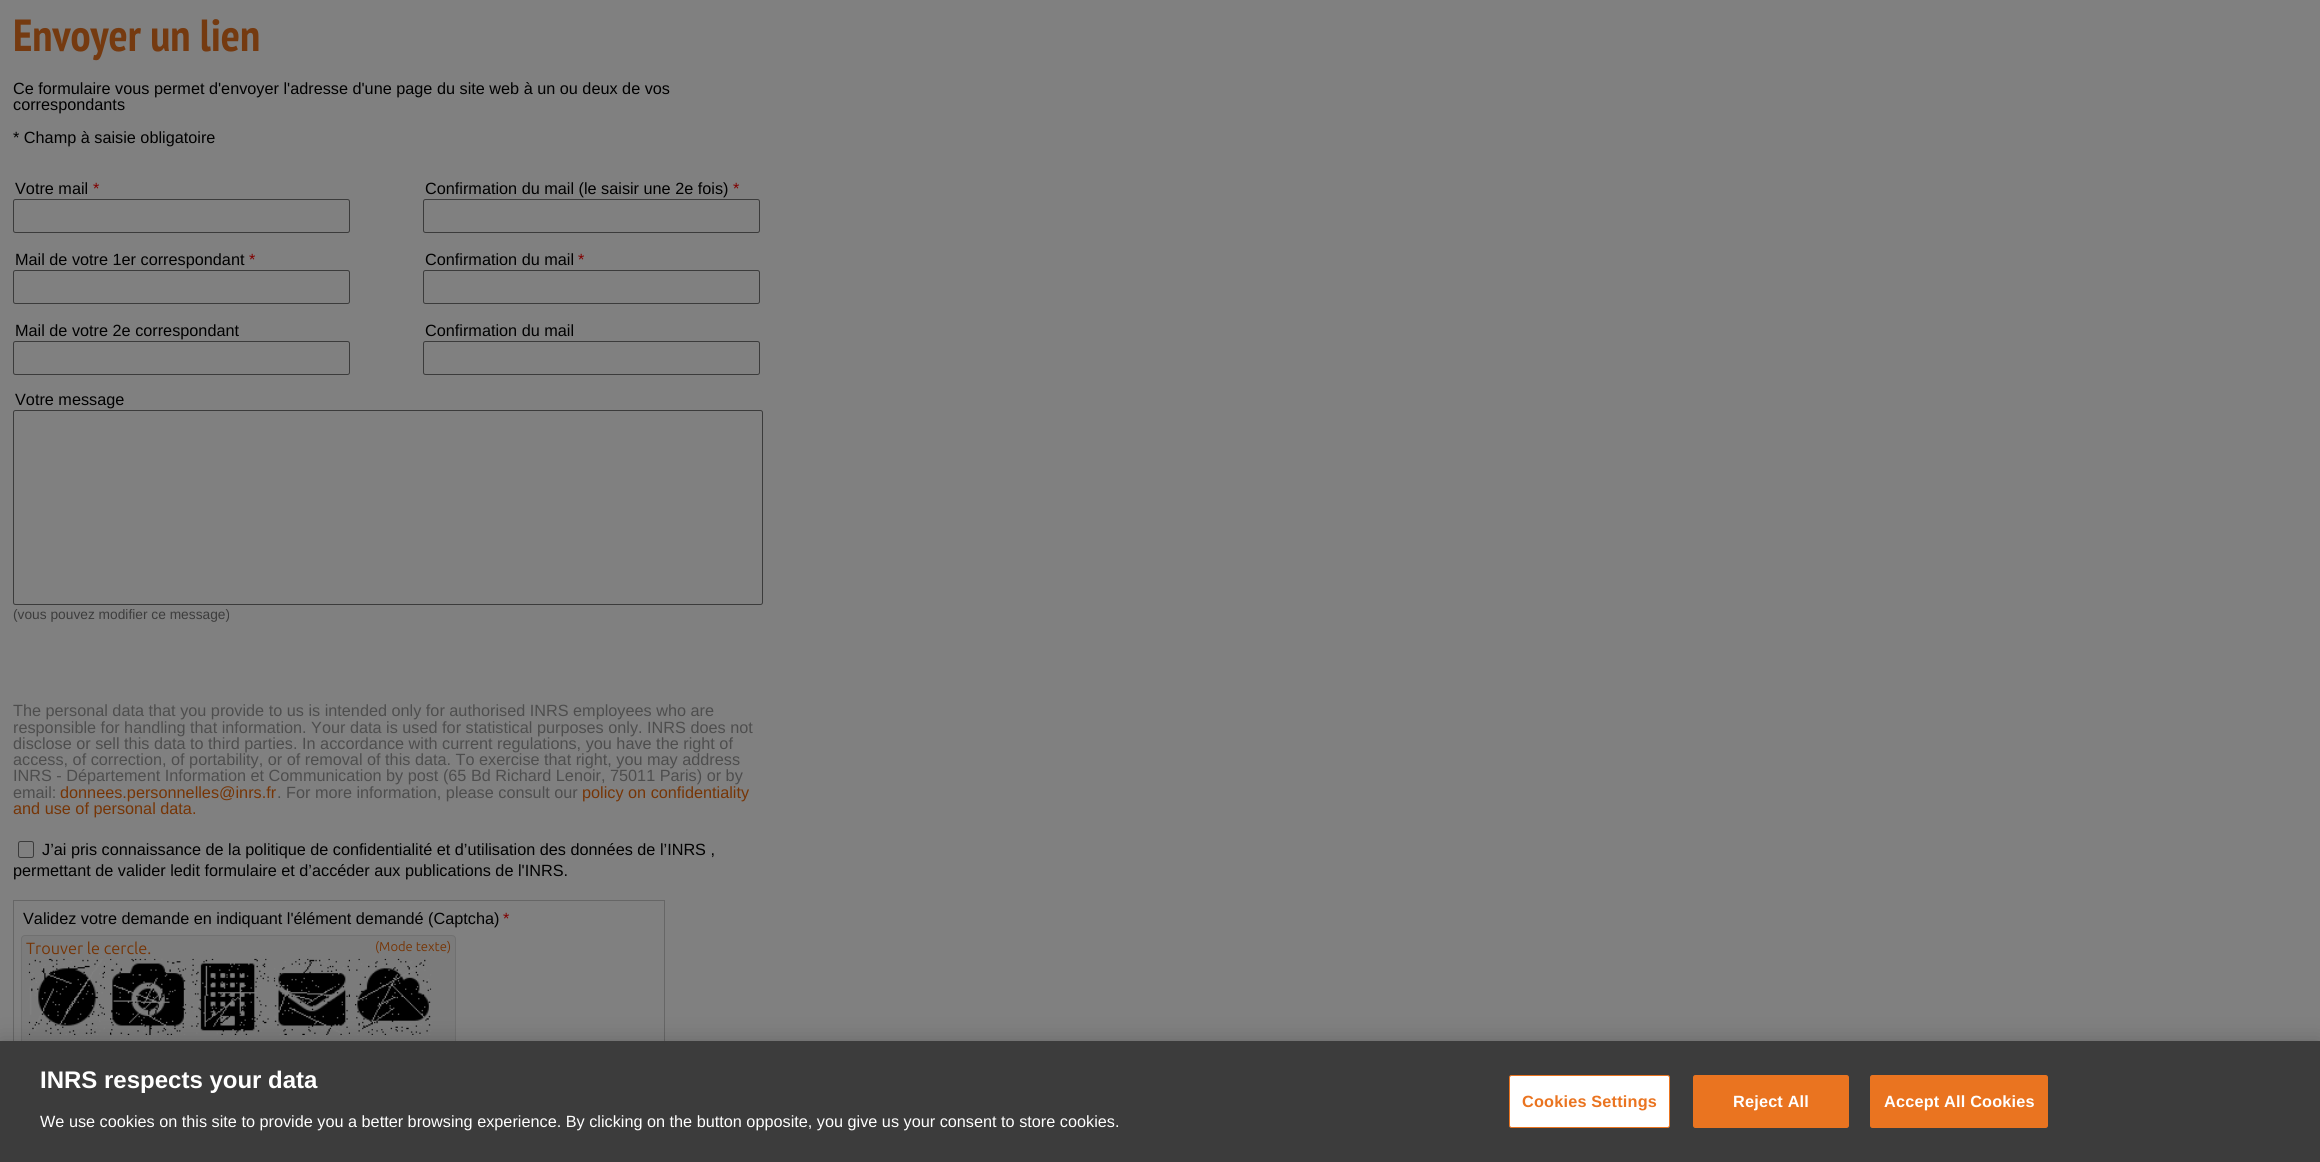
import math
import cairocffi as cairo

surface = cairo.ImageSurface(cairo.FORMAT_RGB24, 2320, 1162)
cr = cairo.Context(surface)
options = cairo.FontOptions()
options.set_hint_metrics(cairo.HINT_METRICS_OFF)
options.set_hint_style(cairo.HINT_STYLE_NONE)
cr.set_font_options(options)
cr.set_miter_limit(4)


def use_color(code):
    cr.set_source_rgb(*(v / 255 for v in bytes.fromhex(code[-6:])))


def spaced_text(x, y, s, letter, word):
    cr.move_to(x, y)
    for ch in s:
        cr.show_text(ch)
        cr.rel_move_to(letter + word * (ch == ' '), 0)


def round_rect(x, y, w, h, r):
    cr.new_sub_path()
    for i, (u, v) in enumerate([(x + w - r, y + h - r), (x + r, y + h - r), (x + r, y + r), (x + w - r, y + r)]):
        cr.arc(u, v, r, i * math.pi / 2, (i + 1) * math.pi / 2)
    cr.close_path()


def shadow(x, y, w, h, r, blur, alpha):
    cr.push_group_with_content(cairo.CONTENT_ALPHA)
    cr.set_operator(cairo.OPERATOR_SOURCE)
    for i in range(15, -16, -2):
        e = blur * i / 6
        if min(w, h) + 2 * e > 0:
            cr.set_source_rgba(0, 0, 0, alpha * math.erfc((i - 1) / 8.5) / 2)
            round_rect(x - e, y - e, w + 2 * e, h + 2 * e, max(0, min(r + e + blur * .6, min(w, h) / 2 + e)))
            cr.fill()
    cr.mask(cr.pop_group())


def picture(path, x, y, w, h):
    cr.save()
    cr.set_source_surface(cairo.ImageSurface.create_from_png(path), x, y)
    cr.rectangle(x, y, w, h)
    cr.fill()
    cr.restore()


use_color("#808080")
cr.paint()
cr.select_font_face("PT Sans Narrow", cairo.FONT_SLANT_NORMAL, cairo.FONT_WEIGHT_BOLD)
cr.set_font_size(45)
use_color("#753a10")
cr.move_to(13, 51)
cr.show_text("Envoyer un lien")
cr.select_font_face("Liberation Sans")
cr.set_font_size(16.25)
use_color("#000000")
cr.move_to(13, 94)
cr.show_text("Ce formulaire vous permet d'envoyer l'adresse d'une page du site web à un ou deux de vos")
cr.move_to(13, 110)
cr.show_text("correspondants")
cr.move_to(13, 143)
cr.show_text("* Champ à saisie obligatoire")
cr.move_to(15, 194)
cr.show_text("Votre mail")
use_color("#800000")
cr.move_to(93, 194)
cr.show_text("*")
round_rect(13.5, 199.5, 336, 33, 2)
use_color("#3b3b3b")
cr.set_line_width(1)
cr.stroke()
use_color("#000000")
cr.move_to(425, 194)
cr.show_text("Confirmation du mail (le saisir une 2e fois)")
use_color("#800000")
cr.move_to(733, 194)
cr.show_text("*")
round_rect(423.5, 199.5, 336, 33, 2)
use_color("#3b3b3b")
cr.stroke()
use_color("#000000")
cr.move_to(15, 265)
cr.show_text("Mail de votre 1er correspondant")
use_color("#800000")
cr.move_to(249, 265)
cr.show_text("*")
round_rect(13.5, 270.5, 336, 33, 2)
use_color("#3b3b3b")
cr.stroke()
use_color("#000000")
cr.move_to(425, 265)
cr.show_text("Confirmation du mail")
use_color("#800000")
cr.move_to(578, 265)
cr.show_text("*")
round_rect(423.5, 270.5, 336, 33, 2)
use_color("#3b3b3b")
cr.stroke()
use_color("#000000")
cr.move_to(15, 336)
cr.show_text("Mail de votre 2e correspondant")
round_rect(13.5, 341.5, 336, 33, 2)
use_color("#3b3b3b")
cr.stroke()
use_color("#000000")
cr.move_to(425, 336)
cr.show_text("Confirmation du mail")
round_rect(423.5, 341.5, 336, 33, 2)
use_color("#3b3b3b")
cr.stroke()
use_color("#000000")
cr.move_to(15, 405)
cr.show_text("Votre message")
round_rect(13.5, 410.5, 749, 194, 2)
use_color("#3b3b3b")
cr.stroke()
cr.set_font_size(13.75)
use_color("#3c3c3c")
cr.move_to(13, 619)
cr.show_text("(vous pouvez modifier ce message)")
cr.set_font_size(16.25)
use_color("#4d4d4d")
cr.move_to(13, 716)
cr.show_text("The personal data that you provide to us is intended only for authorised INRS employees who are")
cr.move_to(13, 733)
cr.show_text("responsible for handling that information. Your data is used for statistical purposes only. INRS does not")
cr.move_to(13, 749)
cr.show_text("disclose or sell this data to third parties. In accordance with current regulations, you have the right of")
cr.move_to(13, 765)
cr.show_text("access, of correction, of portability, or of removal of this data. To exercise that right, you may address")
cr.move_to(13, 781)
cr.show_text("INRS - Département Information et Communication by post (65 Bd Richard Lenoir, 75011 Paris) or by")
cr.move_to(13, 798)
cr.show_text("email:")
use_color("#763506")
cr.move_to(60, 798)
cr.show_text("donnees.personnelles@inrs.fr")
use_color("#4d4d4d")
cr.move_to(277, 798)
cr.show_text(". For more information, please consult our")
use_color("#763506")
cr.move_to(582, 798)
cr.show_text("policy on confidentiality")
cr.move_to(13, 814)
cr.show_text("and use of personal data.")
round_rect(18.5, 841.5, 15, 16, 2)
use_color("#3b3b3b")
cr.stroke()
use_color("#000000")
cr.move_to(42, 855)
cr.show_text("J’ai pris connaissance de la politique de confidentialité et d’utilisation des données de l’INRS ,")
cr.move_to(13, 876)
cr.show_text("permettant de valider ledit formulaire et d’accéder aux publications de l'INRS.")
cr.rectangle(13.5, 900.5, 651, 158)
use_color("#666666")
cr.stroke()
use_color("#000000")
cr.move_to(23, 924)
cr.show_text("Validez votre demande en indiquant l'élément demandé (Captcha)")
use_color("#800000")
cr.move_to(503, 924)
cr.show_text("*")
use_color("#7b7b7b")
round_rect(21.5, 935.5, 434, 109, 3.5)
cr.fill_preserve()
use_color("#707070")
cr.stroke()
cr.select_font_face("Ubuntu")
use_color("#763506")
cr.move_to(26, 954)
cr.show_text("Trouver le cercle.")
cr.set_font_size(13)
cr.move_to(375, 951)
cr.show_text("(Mode texte)")
picture("img1.png", 28, 958, 77, 77)
picture("img2.png", 110, 958, 77, 77)
picture("img3.png", 191, 958, 78, 77)
picture("img4.png", 273, 958, 77, 77)
picture("img5.png", 355, 958, 77, 77)
use_color("#000000")
shadow(0, 1041, 2320, 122, 0, 11, 0.2)
use_color("#3c3c3c")
cr.rectangle(0, 1041, 2320, 121)
cr.fill()
cr.select_font_face("Liberation Sans", cairo.FONT_SLANT_NORMAL, cairo.FONT_WEIGHT_BOLD)
cr.set_font_size(24)
use_color("#ffffff")
cr.move_to(40, 1088)
cr.show_text("INRS respects your data")
cr.select_font_face("Liberation Sans")
cr.set_font_size(16.25)
cr.move_to(40, 1127)
cr.show_text("We use cookies on this site to provide you a better browsing experience. By clicking on the button opposite, you give us your consent to store cookies.")
round_rect(1509.5, 1075.5, 160, 52, 2)
cr.fill_preserve()
use_color("#ea7420")
cr.stroke()
cr.select_font_face("Liberation Sans", cairo.FONT_SLANT_NORMAL, cairo.FONT_WEIGHT_BOLD)
spaced_text(1522, 1107, "Cookies Settings", 0.2, 0)
round_rect(1693.5, 1075.5, 155, 52, 2)
cr.fill_preserve()
cr.stroke()
use_color("#ffffff")
spaced_text(1733, 1107, "Reject All", 0.2, 0)
use_color("#ea7420")
round_rect(1870.5, 1075.5, 177, 52, 2)
cr.fill_preserve()
cr.stroke()
use_color("#ffffff")
spaced_text(1884, 1107, "Accept All Cookies", 0.2, 0)
surface.write_to_png("result.png")
